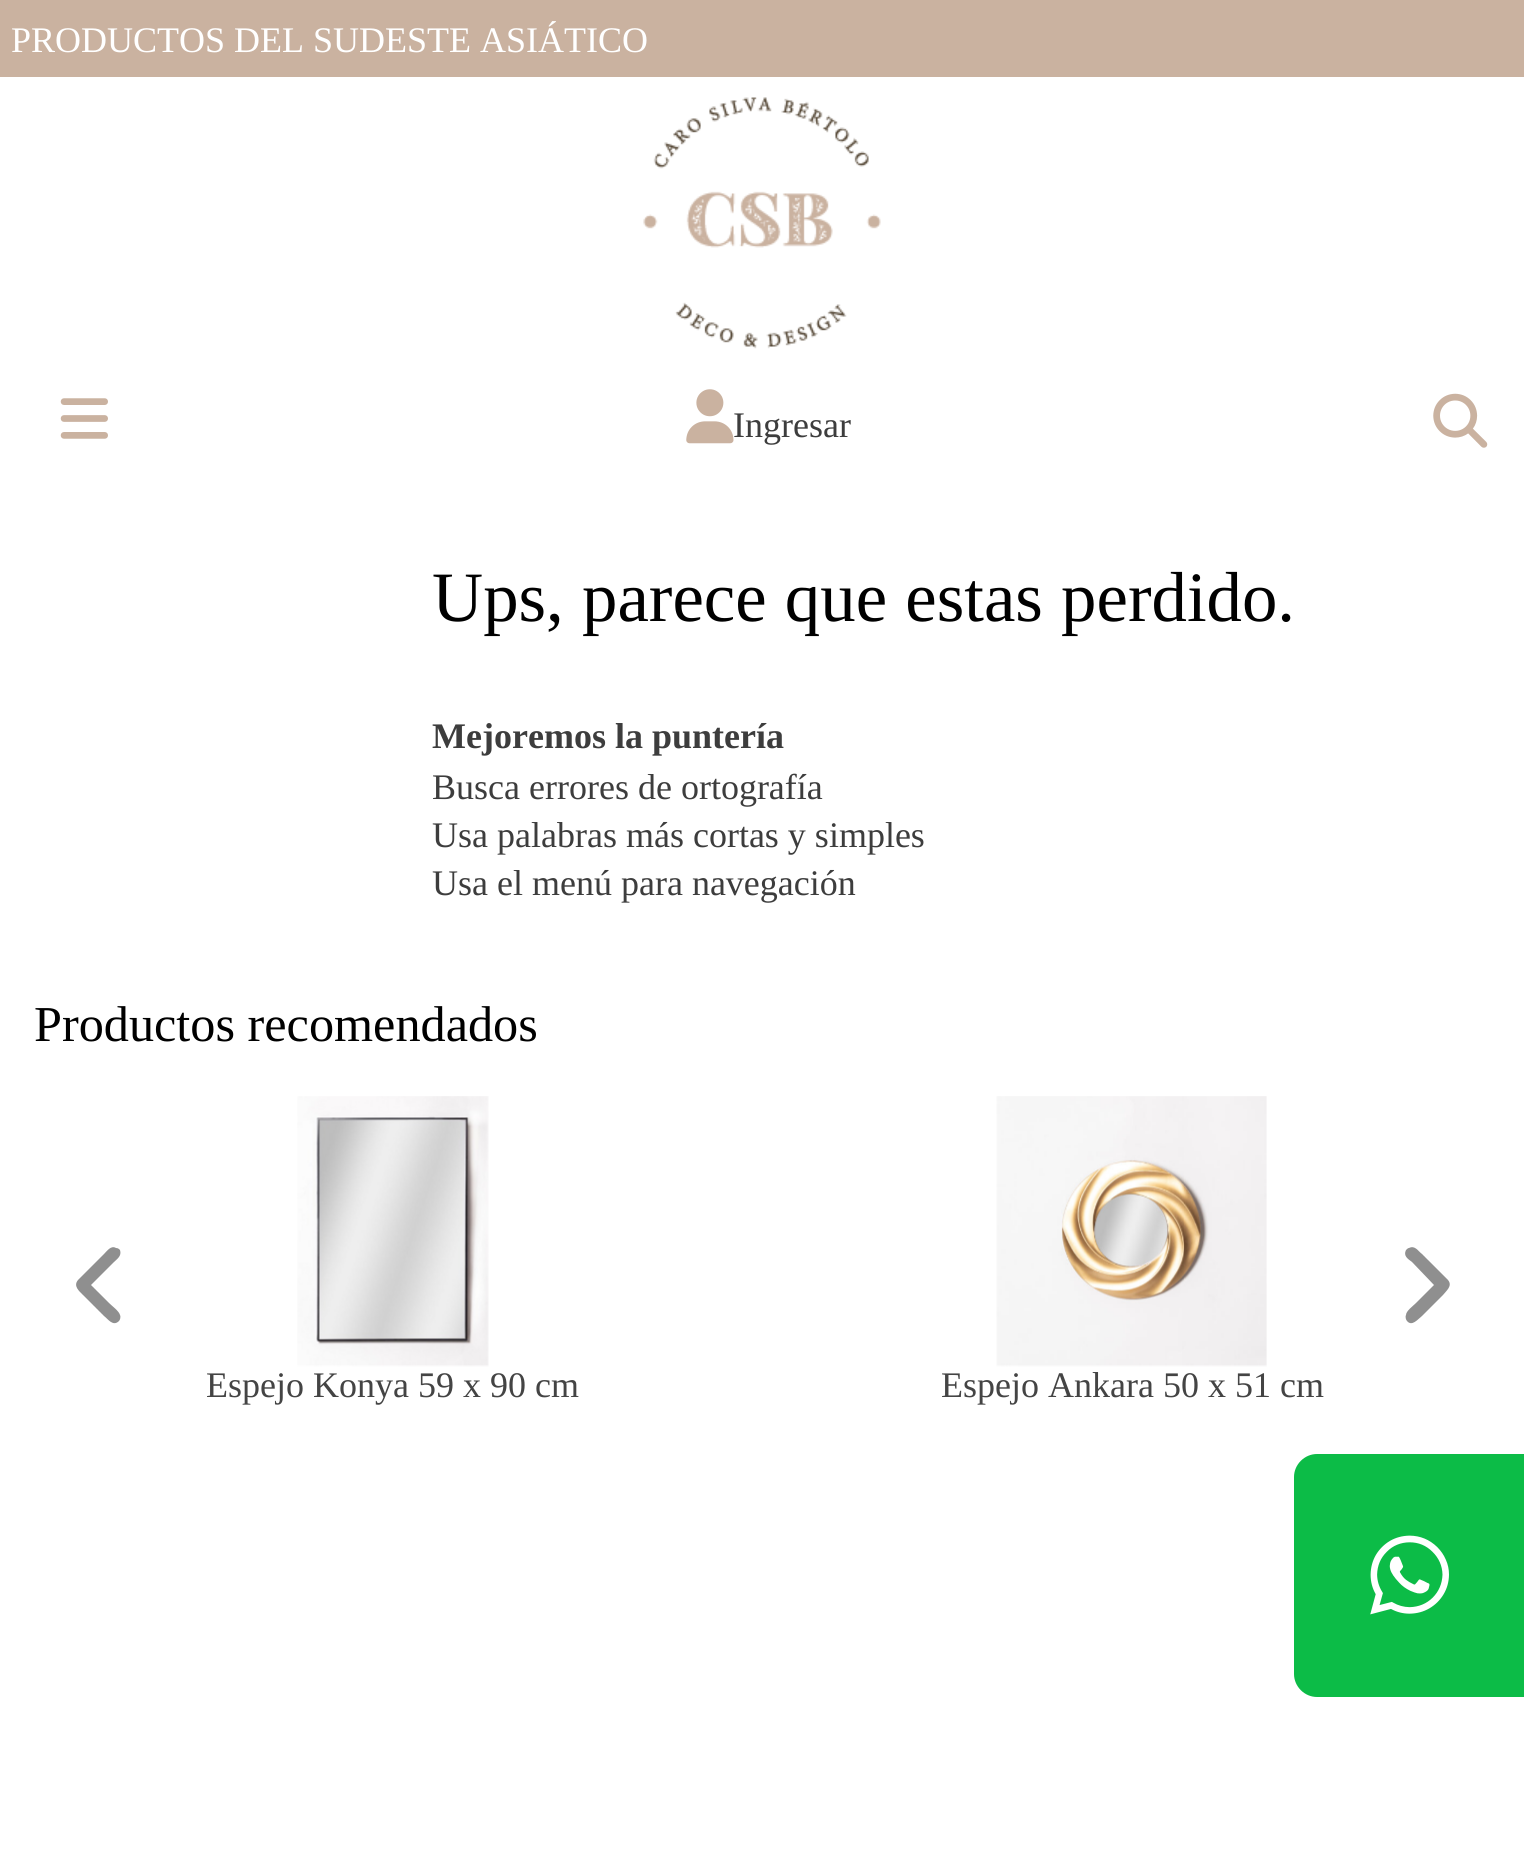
import math
import cairocffi as cairo

surface = cairo.ImageSurface(cairo.FORMAT_RGB24, 1524, 1875)
cr = cairo.Context(surface)
options = cairo.FontOptions()
options.set_hint_metrics(cairo.HINT_METRICS_OFF)
options.set_hint_style(cairo.HINT_STYLE_NONE)
cr.set_font_options(options)
cr.set_miter_limit(4)


def use_color(code):
    cr.set_source_rgb(*(v / 255 for v in bytes.fromhex(code[-6:])))


def spaced_text(x, y, s, letter, word):
    cr.move_to(x, y)
    for ch in s:
        cr.show_text(ch)
        cr.rel_move_to(letter + word * (ch == ' '), 0)


def picture(path, x, y, w, h):
    cr.save()
    cr.set_source_surface(cairo.ImageSurface.create_from_png(path), x, y)
    cr.rectangle(x, y, w, h)
    cr.fill()
    cr.restore()


use_color("#ffffff")
cr.paint()
use_color("#cab2a0")
cr.rectangle(0, 0, 1524, 77)
cr.fill()
cr.select_font_face("Liberation Serif")
cr.set_font_size(36)
use_color("#ffffff")
cr.move_to(11, 52)
cr.show_text("PRODUCTOS DEL SUDESTE ASIÁTICO")
picture("img1.png", 643, 97, 238, 252)
picture("img2.png", 60, 398, 48, 41)
picture("img3.png", 686, 389, 48, 55)
use_color("#3d3d3d")
cr.move_to(733, 437)
cr.show_text("Ingresar")
picture("img4.png", 1433, 393, 55, 55)
cr.set_font_size(70.8)
use_color("#000000")
spaced_text(432, 621, "Ups, parece que estas perdido.", 0, 0.5)
cr.select_font_face("Liberation Serif", cairo.FONT_SLANT_NORMAL, cairo.FONT_WEIGHT_BOLD)
cr.set_font_size(36)
use_color("#3d3d3d")
cr.move_to(432, 748)
cr.show_text("Mejoremos la puntería")
cr.select_font_face("Liberation Serif")
cr.move_to(432, 799)
cr.show_text("Busca errores de ortografía")
cr.move_to(432, 847)
cr.show_text("Usa palabras más cortas y simples")
cr.move_to(432, 895)
cr.show_text("Usa el menú para navegación")
cr.set_font_size(50.25)
use_color("#000000")
cr.move_to(34, 1041)
cr.show_text("Productos recomendados")
use_color("#8f8f8f")
cr.new_path()
cr.move_to(78, 1280)
cr.curve_to(73, 1286, 79, 1291, 83, 1295)
cr.line_to(104, 1316)
cr.curve_to(108, 1319, 113, 1327, 119, 1321)
cr.curve_to(120, 1320, 121, 1317, 120, 1315)
cr.curve_to(119, 1311, 112, 1306, 109, 1303)
cr.line_to(91, 1285)
cr.line_to(114, 1262)
cr.curve_to(117, 1259, 122, 1256, 120, 1250)
cr.curve_to(119, 1249, 118, 1248, 116, 1248)
cr.curve_to(111, 1245, 107, 1251, 104, 1254)
cr.close_path()
cr.fill()
cr.new_path()
cr.move_to(1448, 1280)
cr.curve_to(1453, 1286, 1446, 1291, 1443, 1295)
cr.line_to(1422, 1316)
cr.curve_to(1418, 1319, 1412, 1327, 1407, 1321)
cr.curve_to(1406, 1320, 1405, 1317, 1406, 1315)
cr.curve_to(1406, 1311, 1413, 1306, 1416, 1303)
cr.line_to(1434, 1285)
cr.line_to(1412, 1262)
cr.curve_to(1408, 1259, 1403, 1256, 1406, 1250)
cr.curve_to(1407, 1249, 1408, 1248, 1409, 1248)
cr.curve_to(1415, 1245, 1418, 1251, 1422, 1254)
cr.close_path()
cr.fill()
picture("img5.png", 297, 1096, 192, 271)
cr.set_font_size(36)
use_color("#444444")
cr.move_to(206, 1397)
cr.show_text("Espejo Konya 59 x 90 cm")
picture("img6.png", 996, 1096, 271, 271)
cr.move_to(941, 1397)
cr.show_text("Espejo Ankara 50 x 51 cm")
use_color("#0cbc47")
cr.new_path()
cr.move_to(1317, 1454)
cr.line_to(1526, 1454)
cr.line_to(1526, 1697)
cr.line_to(1317, 1697)
cr.curve_to(1304.5, 1697, 1294, 1686.5, 1294, 1674)
cr.line_to(1294, 1477)
cr.curve_to(1294, 1464.5, 1304.5, 1454, 1317, 1454)
cr.close_path()
cr.fill()
picture("img7.png", 1370, 1535, 79, 80)
surface.write_to_png("result.png")
